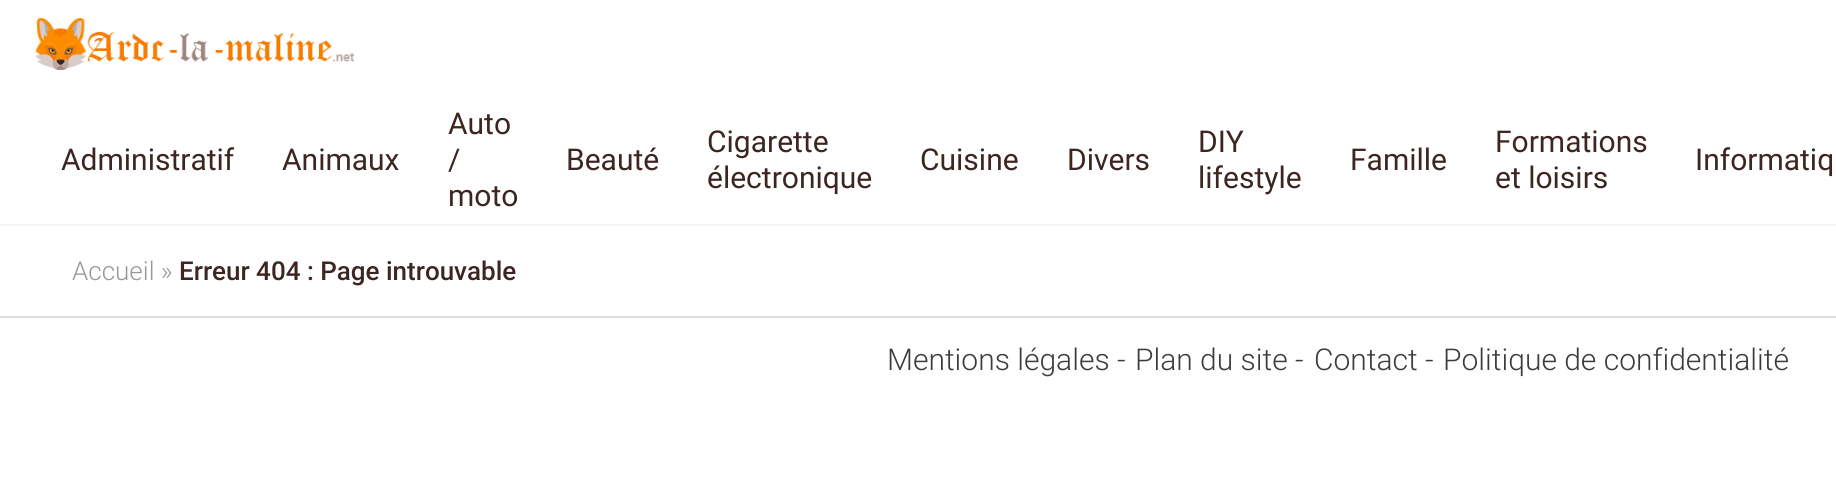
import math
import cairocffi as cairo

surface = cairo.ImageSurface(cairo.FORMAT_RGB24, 1836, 499)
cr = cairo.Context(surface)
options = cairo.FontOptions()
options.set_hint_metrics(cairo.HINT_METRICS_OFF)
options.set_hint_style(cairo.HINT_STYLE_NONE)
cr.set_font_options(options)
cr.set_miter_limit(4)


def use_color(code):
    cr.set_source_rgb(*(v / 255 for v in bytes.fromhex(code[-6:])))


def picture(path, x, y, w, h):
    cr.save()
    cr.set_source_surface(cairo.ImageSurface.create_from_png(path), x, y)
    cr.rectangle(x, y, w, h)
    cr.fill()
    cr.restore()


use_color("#ffffff")
cr.paint()
use_color("#f3f3f3")
cr.rectangle(0, 224, 1836, 2)
cr.fill()
picture("img1.png", 36, 18, 318, 52)
cr.select_font_face("Roboto")
cr.set_font_size(30)
use_color("#3d2622")
cr.move_to(61, 170)
cr.show_text("Administratif")
cr.move_to(282, 170)
cr.show_text("Animaux")
cr.move_to(448, 134)
cr.show_text("Auto")
cr.move_to(448, 170)
cr.show_text("/")
cr.move_to(448, 206)
cr.show_text("moto")
cr.move_to(566, 170)
cr.show_text("Beauté")
cr.move_to(707, 152)
cr.show_text("Cigarette")
cr.move_to(707, 188)
cr.show_text("électronique")
cr.move_to(920, 170)
cr.show_text("Cuisine")
cr.move_to(1067, 170)
cr.show_text("Divers")
cr.move_to(1198, 152)
cr.show_text("DIY")
cr.move_to(1198, 188)
cr.show_text("lifestyle")
cr.move_to(1350, 170)
cr.show_text("Famille")
cr.move_to(1495, 152)
cr.show_text("Formations")
cr.move_to(1495, 188)
cr.show_text("et loisirs")
cr.move_to(1695, 170)
cr.show_text("Informatiq")
cr.select_font_face("Roboto Light")
cr.set_font_size(26)
use_color("#989898")
cr.move_to(72, 280)
cr.show_text("Accueil »")
cr.select_font_face("Roboto Medium")
use_color("#3d2622")
cr.move_to(179, 280)
cr.show_text("Erreur 404 : Page introuvable")
use_color("#dedede")
cr.rectangle(0, 316, 1836, 2)
cr.fill()
cr.select_font_face("Roboto Light")
cr.set_font_size(30)
use_color("#3c3c3c")
cr.move_to(887, 370)
cr.show_text("Mentions légales -")
cr.move_to(1135, 370)
cr.show_text("Plan du site -")
cr.move_to(1314, 370)
cr.show_text("Contact -")
cr.move_to(1443, 370)
cr.show_text("Politique de confidentialité")
surface.write_to_png("result.png")
